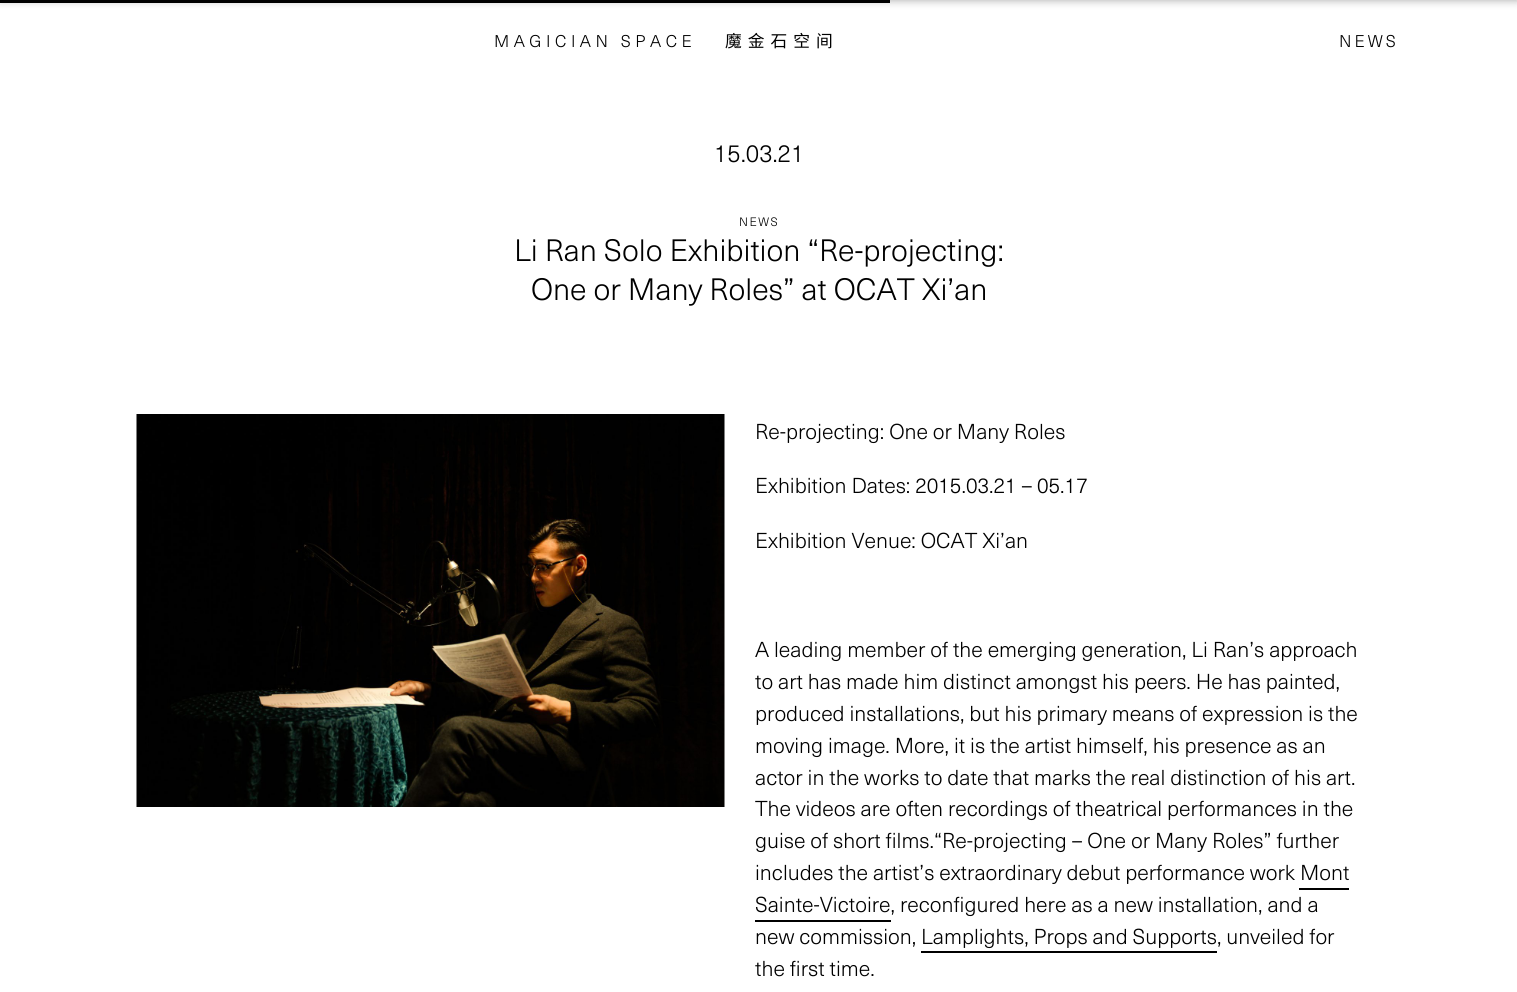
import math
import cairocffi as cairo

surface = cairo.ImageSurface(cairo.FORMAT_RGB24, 1517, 992)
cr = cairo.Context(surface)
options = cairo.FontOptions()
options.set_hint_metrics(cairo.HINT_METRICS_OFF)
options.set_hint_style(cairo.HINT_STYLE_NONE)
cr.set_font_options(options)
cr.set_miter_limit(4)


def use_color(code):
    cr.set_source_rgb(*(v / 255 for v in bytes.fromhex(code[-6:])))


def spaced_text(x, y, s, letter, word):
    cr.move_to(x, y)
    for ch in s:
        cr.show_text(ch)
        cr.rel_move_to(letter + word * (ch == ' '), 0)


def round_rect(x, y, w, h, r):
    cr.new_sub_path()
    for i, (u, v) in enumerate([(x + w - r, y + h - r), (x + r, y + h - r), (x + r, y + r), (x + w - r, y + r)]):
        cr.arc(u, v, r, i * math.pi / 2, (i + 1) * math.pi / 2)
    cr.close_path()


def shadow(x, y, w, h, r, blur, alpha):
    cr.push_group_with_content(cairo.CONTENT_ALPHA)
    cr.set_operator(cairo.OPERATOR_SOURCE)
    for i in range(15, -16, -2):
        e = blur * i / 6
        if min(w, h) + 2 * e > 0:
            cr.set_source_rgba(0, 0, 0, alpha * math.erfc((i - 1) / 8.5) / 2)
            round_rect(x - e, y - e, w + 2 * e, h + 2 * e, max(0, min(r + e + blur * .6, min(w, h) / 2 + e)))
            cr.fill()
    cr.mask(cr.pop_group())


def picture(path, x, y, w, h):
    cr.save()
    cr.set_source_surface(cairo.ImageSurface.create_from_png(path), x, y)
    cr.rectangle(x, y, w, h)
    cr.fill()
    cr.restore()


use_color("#ffffff")
cr.paint()
use_color("#000000")
cr.rectangle(0, 0, 890, 3)
cr.fill()
use_color("#000000")
shadow(0, -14, 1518, 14, 0, 4.5, 0.35)
cr.select_font_face("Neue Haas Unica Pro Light")
cr.set_font_size(16.75)
use_color("#000000")
spaced_text(494, 47, "MAGICIAN SPACE", 4.5, 0)
cr.select_font_face("Noto Sans CJK SC")
spaced_text(725, 47, "魔金石空间", 6, 0)
cr.select_font_face("Neue Haas Unica Pro Light")
spaced_text(1339, 47, "NEWS", 3, 0)
cr.set_font_size(24.5)
cr.move_to(714, 162)
cr.show_text("15.03.21")
cr.set_font_size(12)
spaced_text(739, 226, "NEWS", 1.5, 0)
cr.set_font_size(30.4)
cr.move_to(514, 261)
cr.show_text("Li Ran Solo Exhibition “Re-projecting:")
cr.move_to(531, 300)
cr.show_text("One or Many Roles” at OCAT Xi’an")
picture("img1.png", 136, 414, 589, 393)
cr.set_font_size(21.25)
cr.move_to(755, 439)
cr.show_text("Re-projecting: One or Many Roles")
cr.move_to(755, 493)
cr.show_text("Exhibition Dates: 2015.03.21 – 05.17")
cr.move_to(755, 548)
cr.show_text("Exhibition Venue: OCAT Xi’an")
cr.move_to(755, 657)
cr.show_text("A leading member of the emerging generation, Li Ran’s approach")
cr.move_to(755, 689)
cr.show_text("to art has made him distinct amongst his peers. He has painted,")
cr.move_to(755, 721)
cr.show_text("produced installations, but his primary means of expression is the")
cr.move_to(755, 753)
cr.show_text("moving image. More, it is the artist himself, his presence as an")
cr.move_to(755, 785)
cr.show_text("actor in the works to date that marks the real distinction of his art.")
cr.move_to(755, 816)
cr.show_text("The videos are often recordings of theatrical performances in the")
cr.move_to(755, 848)
cr.show_text("guise of short films.“Re-projecting – One or Many Roles” further")
cr.move_to(755, 880)
cr.show_text("includes the artist’s extraordinary debut performance work")
cr.move_to(1300, 880)
cr.show_text("Mont")
cr.rectangle(1299, 888, 50, 2)
cr.fill()
cr.move_to(755, 912)
cr.show_text("Sainte-Victoire, reconfigured here as a new installation, and a")
cr.rectangle(755, 920, 136, 2)
cr.fill()
cr.move_to(755, 944)
cr.show_text("new commission, Lamplights, Props and Supports, unveiled for")
cr.rectangle(921, 951, 296, 2)
cr.fill()
cr.move_to(755, 976)
cr.show_text("the first time.")
surface.write_to_png("result.png")
